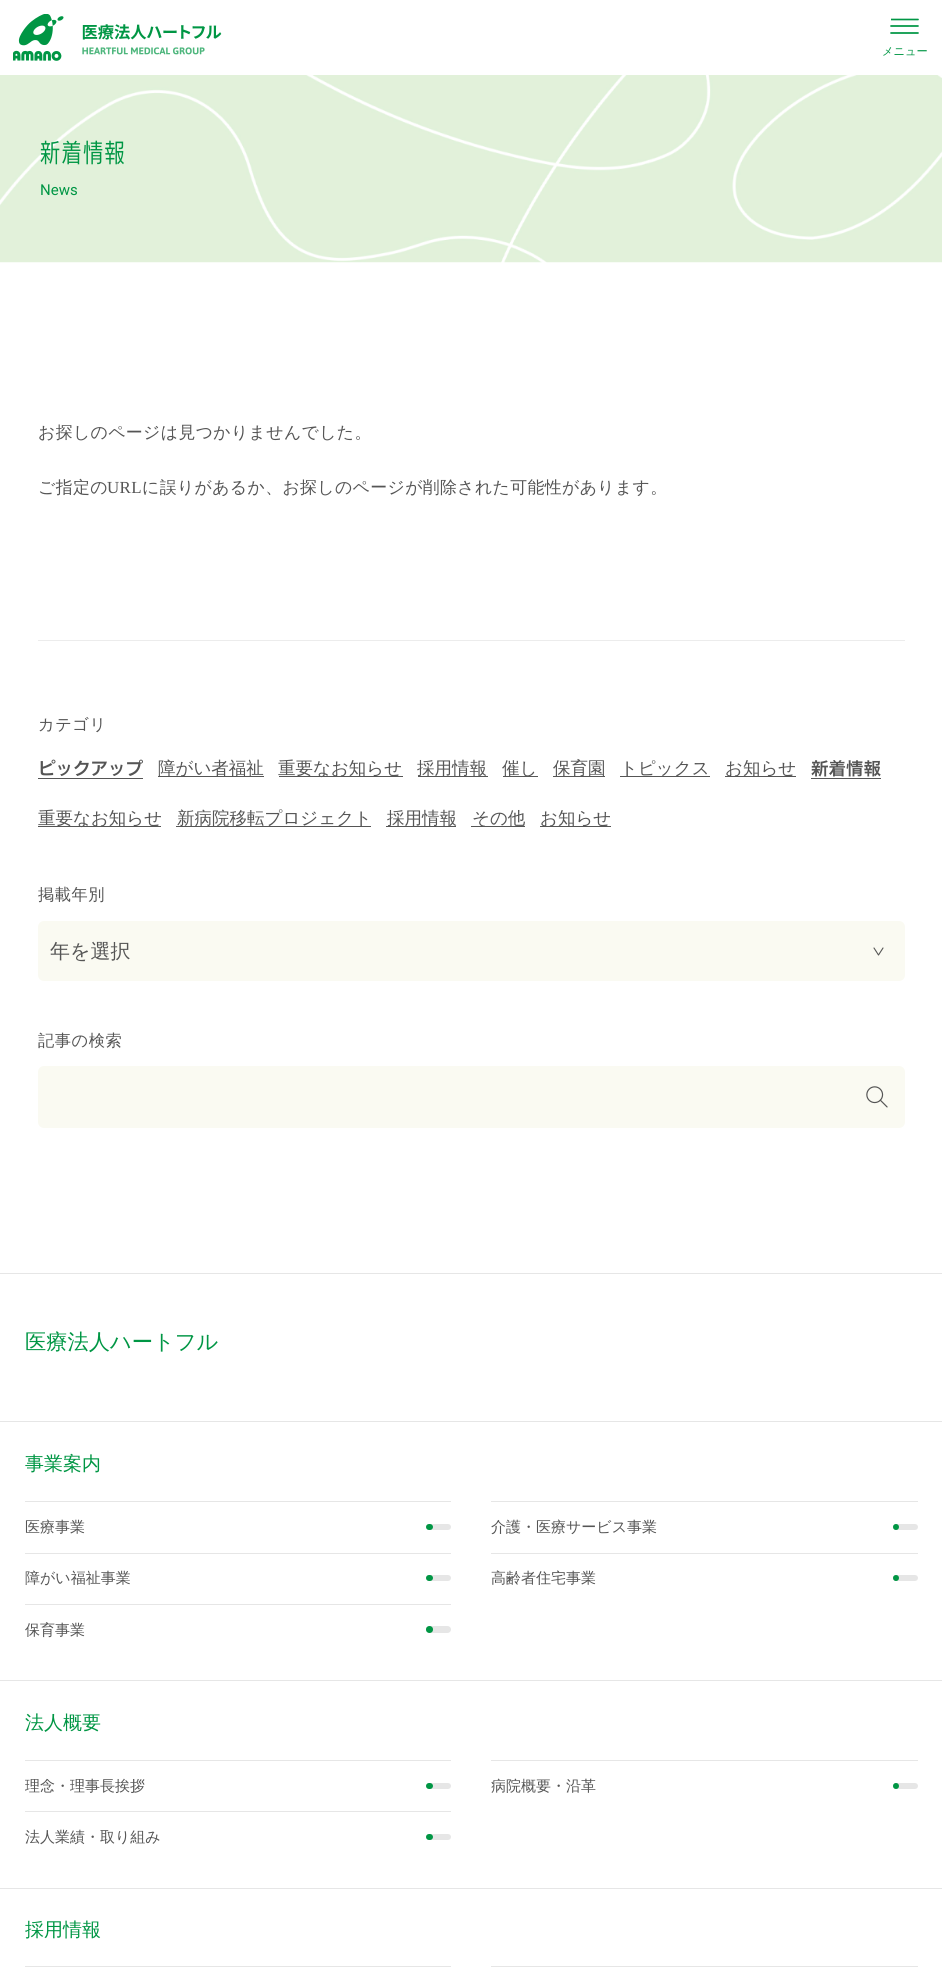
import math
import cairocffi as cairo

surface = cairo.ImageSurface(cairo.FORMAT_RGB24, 942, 1979)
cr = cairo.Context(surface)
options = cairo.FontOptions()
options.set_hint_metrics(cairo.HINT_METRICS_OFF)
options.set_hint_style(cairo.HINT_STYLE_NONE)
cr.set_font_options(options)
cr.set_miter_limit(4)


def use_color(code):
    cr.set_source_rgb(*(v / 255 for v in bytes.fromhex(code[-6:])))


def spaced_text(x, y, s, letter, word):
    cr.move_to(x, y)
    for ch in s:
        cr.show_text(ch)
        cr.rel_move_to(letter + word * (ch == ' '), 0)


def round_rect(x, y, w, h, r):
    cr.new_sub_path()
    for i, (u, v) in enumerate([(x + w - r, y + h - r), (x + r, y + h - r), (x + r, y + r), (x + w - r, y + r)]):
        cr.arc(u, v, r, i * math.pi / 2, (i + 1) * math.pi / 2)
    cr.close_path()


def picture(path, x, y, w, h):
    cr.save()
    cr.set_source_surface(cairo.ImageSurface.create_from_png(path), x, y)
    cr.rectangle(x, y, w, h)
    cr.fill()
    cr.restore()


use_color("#ffffff")
cr.paint()
picture("img1.png", 13, 14, 209, 47)
cr.save()
cr.rectangle(891, 13, 28, 27)
cr.clip()
cr.new_path()
cr.move_to(918, 19.5)
cr.line_to(891, 19.5)
use_color("#009644")
cr.set_line_width(1.7)
cr.set_line_cap(cairo.LINE_CAP_ROUND)
cr.set_line_join(cairo.LINE_JOIN_ROUND)
cr.stroke()
cr.restore()
cr.new_path()
cr.move_to(918, 26)
cr.line_to(891, 26)
cr.move_to(918, 33)
cr.line_to(891, 33)
use_color("#009644")
cr.set_line_width(1.7)
cr.set_line_cap(cairo.LINE_CAP_ROUND)
cr.set_line_join(cairo.LINE_JOIN_ROUND)
cr.stroke()
cr.select_font_face("WenQuanYi Zen Hei Medium")
cr.set_font_size(11.25)
cr.move_to(882, 55)
cr.show_text("メニュー")
picture("img2.png", 0, 75, 942, 188)
cr.select_font_face("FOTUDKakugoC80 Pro")
cr.set_font_size(25)
spaced_text(40, 162, "新着情報", 1.5, 0)
cr.select_font_face("Roboto")
cr.set_font_size(15)
cr.move_to(40, 195)
cr.show_text("News")
cr.select_font_face("WenQuanYi Zen Hei Medium")
cr.set_font_size(16.9)
use_color("#555555")
spaced_text(38, 438, "お探しのページは見つかりませんでした。", 0.35, 0)
spaced_text(38, 493, "ご指定の", 0.35, 0)
cr.select_font_face("Liberation Serif")
spaced_text(107, 493, "URL", 0.35, 0)
cr.select_font_face("WenQuanYi Zen Hei Medium")
spaced_text(142, 493, "に誤りがあるか、お探しのページが削除された可能性があります。", 0.35, 0)
use_color("#ececec")
cr.rectangle(38, 640, 867, 1)
cr.fill()
cr.set_font_size(16.25)
use_color("#555555")
spaced_text(38, 730, "カテゴリ", 0.5, 0)
cr.select_font_face("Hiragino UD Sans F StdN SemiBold")
cr.set_font_size(17.5)
cr.move_to(38, 775)
cr.show_text("ピックアップ")
cr.rectangle(38, 778, 105, 1)
cr.fill()
cr.rectangle(158, 776, 106, 1)
cr.fill()
cr.select_font_face("WenQuanYi Zen Hei Medium")
cr.move_to(158, 774)
cr.show_text("障がい者福祉")
cr.rectangle(279, 776, 124, 1)
cr.fill()
cr.move_to(278, 774)
cr.show_text("重要なお知らせ")
cr.rectangle(418, 776, 70, 1)
cr.fill()
cr.move_to(417, 774)
cr.show_text("採用情報")
cr.rectangle(503, 776, 35, 1)
cr.fill()
cr.move_to(502, 774)
cr.show_text("催し")
cr.rectangle(553, 776, 52, 1)
cr.fill()
cr.move_to(553, 774)
cr.show_text("保育園")
cr.rectangle(620, 776, 90, 1)
cr.fill()
cr.move_to(620, 774)
cr.show_text("トピックス")
cr.rectangle(725, 776, 71, 1)
cr.fill()
cr.move_to(725, 774)
cr.show_text("お知らせ")
cr.select_font_face("Hiragino UD Sans F StdN SemiBold")
cr.move_to(811, 775)
cr.show_text("新着情報")
cr.rectangle(811, 778, 70, 1)
cr.fill()
cr.rectangle(38, 826, 123, 1)
cr.fill()
cr.select_font_face("WenQuanYi Zen Hei Medium")
cr.move_to(38, 824)
cr.show_text("重要なお知らせ")
cr.rectangle(176, 826, 195, 1)
cr.fill()
cr.move_to(177, 824)
cr.show_text("新病院移転プロジェクト")
cr.rectangle(386, 826, 70, 1)
cr.fill()
cr.move_to(387, 824)
cr.show_text("採用情報")
cr.rectangle(471, 826, 54, 1)
cr.fill()
cr.move_to(472, 824)
cr.show_text("その他")
cr.rectangle(540, 826, 71, 1)
cr.fill()
cr.move_to(540, 824)
cr.show_text("お知らせ")
cr.set_font_size(16.25)
spaced_text(38, 900, "掲載年別", 0.5, 0)
use_color("#fafaf2")
round_rect(38, 921, 867, 60, 6)
cr.fill()
cr.set_font_size(20)
use_color("#555555")
cr.move_to(50, 958)
cr.show_text("年を選択")
cr.new_path()
cr.move_to(883, 948)
cr.line_to(878.5, 955)
cr.line_to(874, 948)
cr.set_line_width(1.1)
cr.stroke()
cr.set_font_size(16.25)
spaced_text(38, 1046, "記事の検索", 0.5, 0)
use_color("#fafaf2")
round_rect(38, 1066, 867, 62, 6)
cr.fill()
picture("img3.png", 866, 1086, 22, 22)
use_color("#e6e6e6")
cr.rectangle(0, 1273, 942, 1)
cr.fill()
cr.set_font_size(21.25)
use_color("#009644")
cr.move_to(25, 1349)
cr.show_text("医療法人ハートフル")
use_color("#e6e6e6")
cr.rectangle(0, 1421, 942, 1)
cr.fill()
cr.set_font_size(19)
use_color("#009644")
cr.move_to(25, 1470)
cr.show_text("事業案内")
use_color("#e6e6e6")
cr.rectangle(25, 1501, 426, 1)
cr.fill()
cr.set_font_size(15)
use_color("#555555")
cr.move_to(25, 1532)
cr.show_text("医療事業")
use_color("#e6e6e6")
round_rect(426, 1524, 25, 6, 3)
cr.fill()
use_color("#009644")
round_rect(426, 1524, 7, 6, 3)
cr.fill()
use_color("#e6e6e6")
cr.rectangle(491, 1501, 427, 1)
cr.fill()
use_color("#555555")
cr.move_to(491, 1532)
cr.show_text("介護・医療サービス事業")
use_color("#e6e6e6")
round_rect(893, 1524, 25, 6, 3)
cr.fill()
use_color("#009644")
cr.arc(896, 1527, 3, 0, 2 * math.pi)
cr.fill()
use_color("#e6e6e6")
cr.rectangle(25, 1553, 426, 1)
cr.fill()
use_color("#555555")
cr.move_to(25, 1583)
cr.show_text("障がい福祉事業")
use_color("#e6e6e6")
round_rect(426, 1575, 25, 6, 3)
cr.fill()
use_color("#009644")
round_rect(426, 1575, 7, 6, 3)
cr.fill()
use_color("#e6e6e6")
cr.rectangle(491, 1553, 427, 1)
cr.fill()
use_color("#555555")
cr.move_to(491, 1583)
cr.show_text("高齢者住宅事業")
use_color("#e6e6e6")
round_rect(893, 1575, 25, 6, 3)
cr.fill()
use_color("#009644")
cr.arc(896, 1578, 3, 0, 2 * math.pi)
cr.fill()
use_color("#e6e6e6")
cr.rectangle(25, 1604, 426, 1)
cr.fill()
use_color("#555555")
cr.move_to(25, 1635)
cr.show_text("保育事業")
use_color("#e6e6e6")
round_rect(426, 1626, 25, 7, 3.5)
cr.fill()
use_color("#009644")
cr.arc(429.5, 1629.5, 3.5, 0, 2 * math.pi)
cr.fill()
use_color("#e6e6e6")
cr.rectangle(0, 1680, 942, 1)
cr.fill()
cr.set_font_size(19)
use_color("#009644")
cr.move_to(25, 1729)
cr.show_text("法人概要")
use_color("#e6e6e6")
cr.rectangle(25, 1760, 426, 1)
cr.fill()
cr.set_font_size(15)
use_color("#555555")
cr.move_to(25, 1791)
cr.show_text("理念・理事長挨拶")
use_color("#e6e6e6")
round_rect(426, 1783, 25, 6, 3)
cr.fill()
use_color("#009644")
round_rect(426, 1783, 7, 6, 3)
cr.fill()
use_color("#e6e6e6")
cr.rectangle(491, 1760, 427, 1)
cr.fill()
use_color("#555555")
cr.move_to(491, 1791)
cr.show_text("病院概要・沿革")
use_color("#e6e6e6")
round_rect(893, 1783, 25, 6, 3)
cr.fill()
use_color("#009644")
cr.arc(896, 1786, 3, 0, 2 * math.pi)
cr.fill()
use_color("#e6e6e6")
cr.rectangle(25, 1811, 426, 1)
cr.fill()
use_color("#555555")
cr.move_to(25, 1842)
cr.show_text("法人業績・取り組み")
use_color("#e6e6e6")
round_rect(426, 1834, 25, 6, 3)
cr.fill()
use_color("#009644")
round_rect(426, 1834, 7, 6, 3)
cr.fill()
use_color("#e6e6e6")
cr.rectangle(0, 1888, 942, 1)
cr.fill()
cr.set_font_size(19)
use_color("#009644")
cr.move_to(25, 1936)
cr.show_text("採用情報")
use_color("#e6e6e6")
cr.rectangle(25, 1966, 426, 1)
cr.fill()
cr.rectangle(491, 1966, 427, 1)
cr.fill()
surface.write_to_png("result.png")
